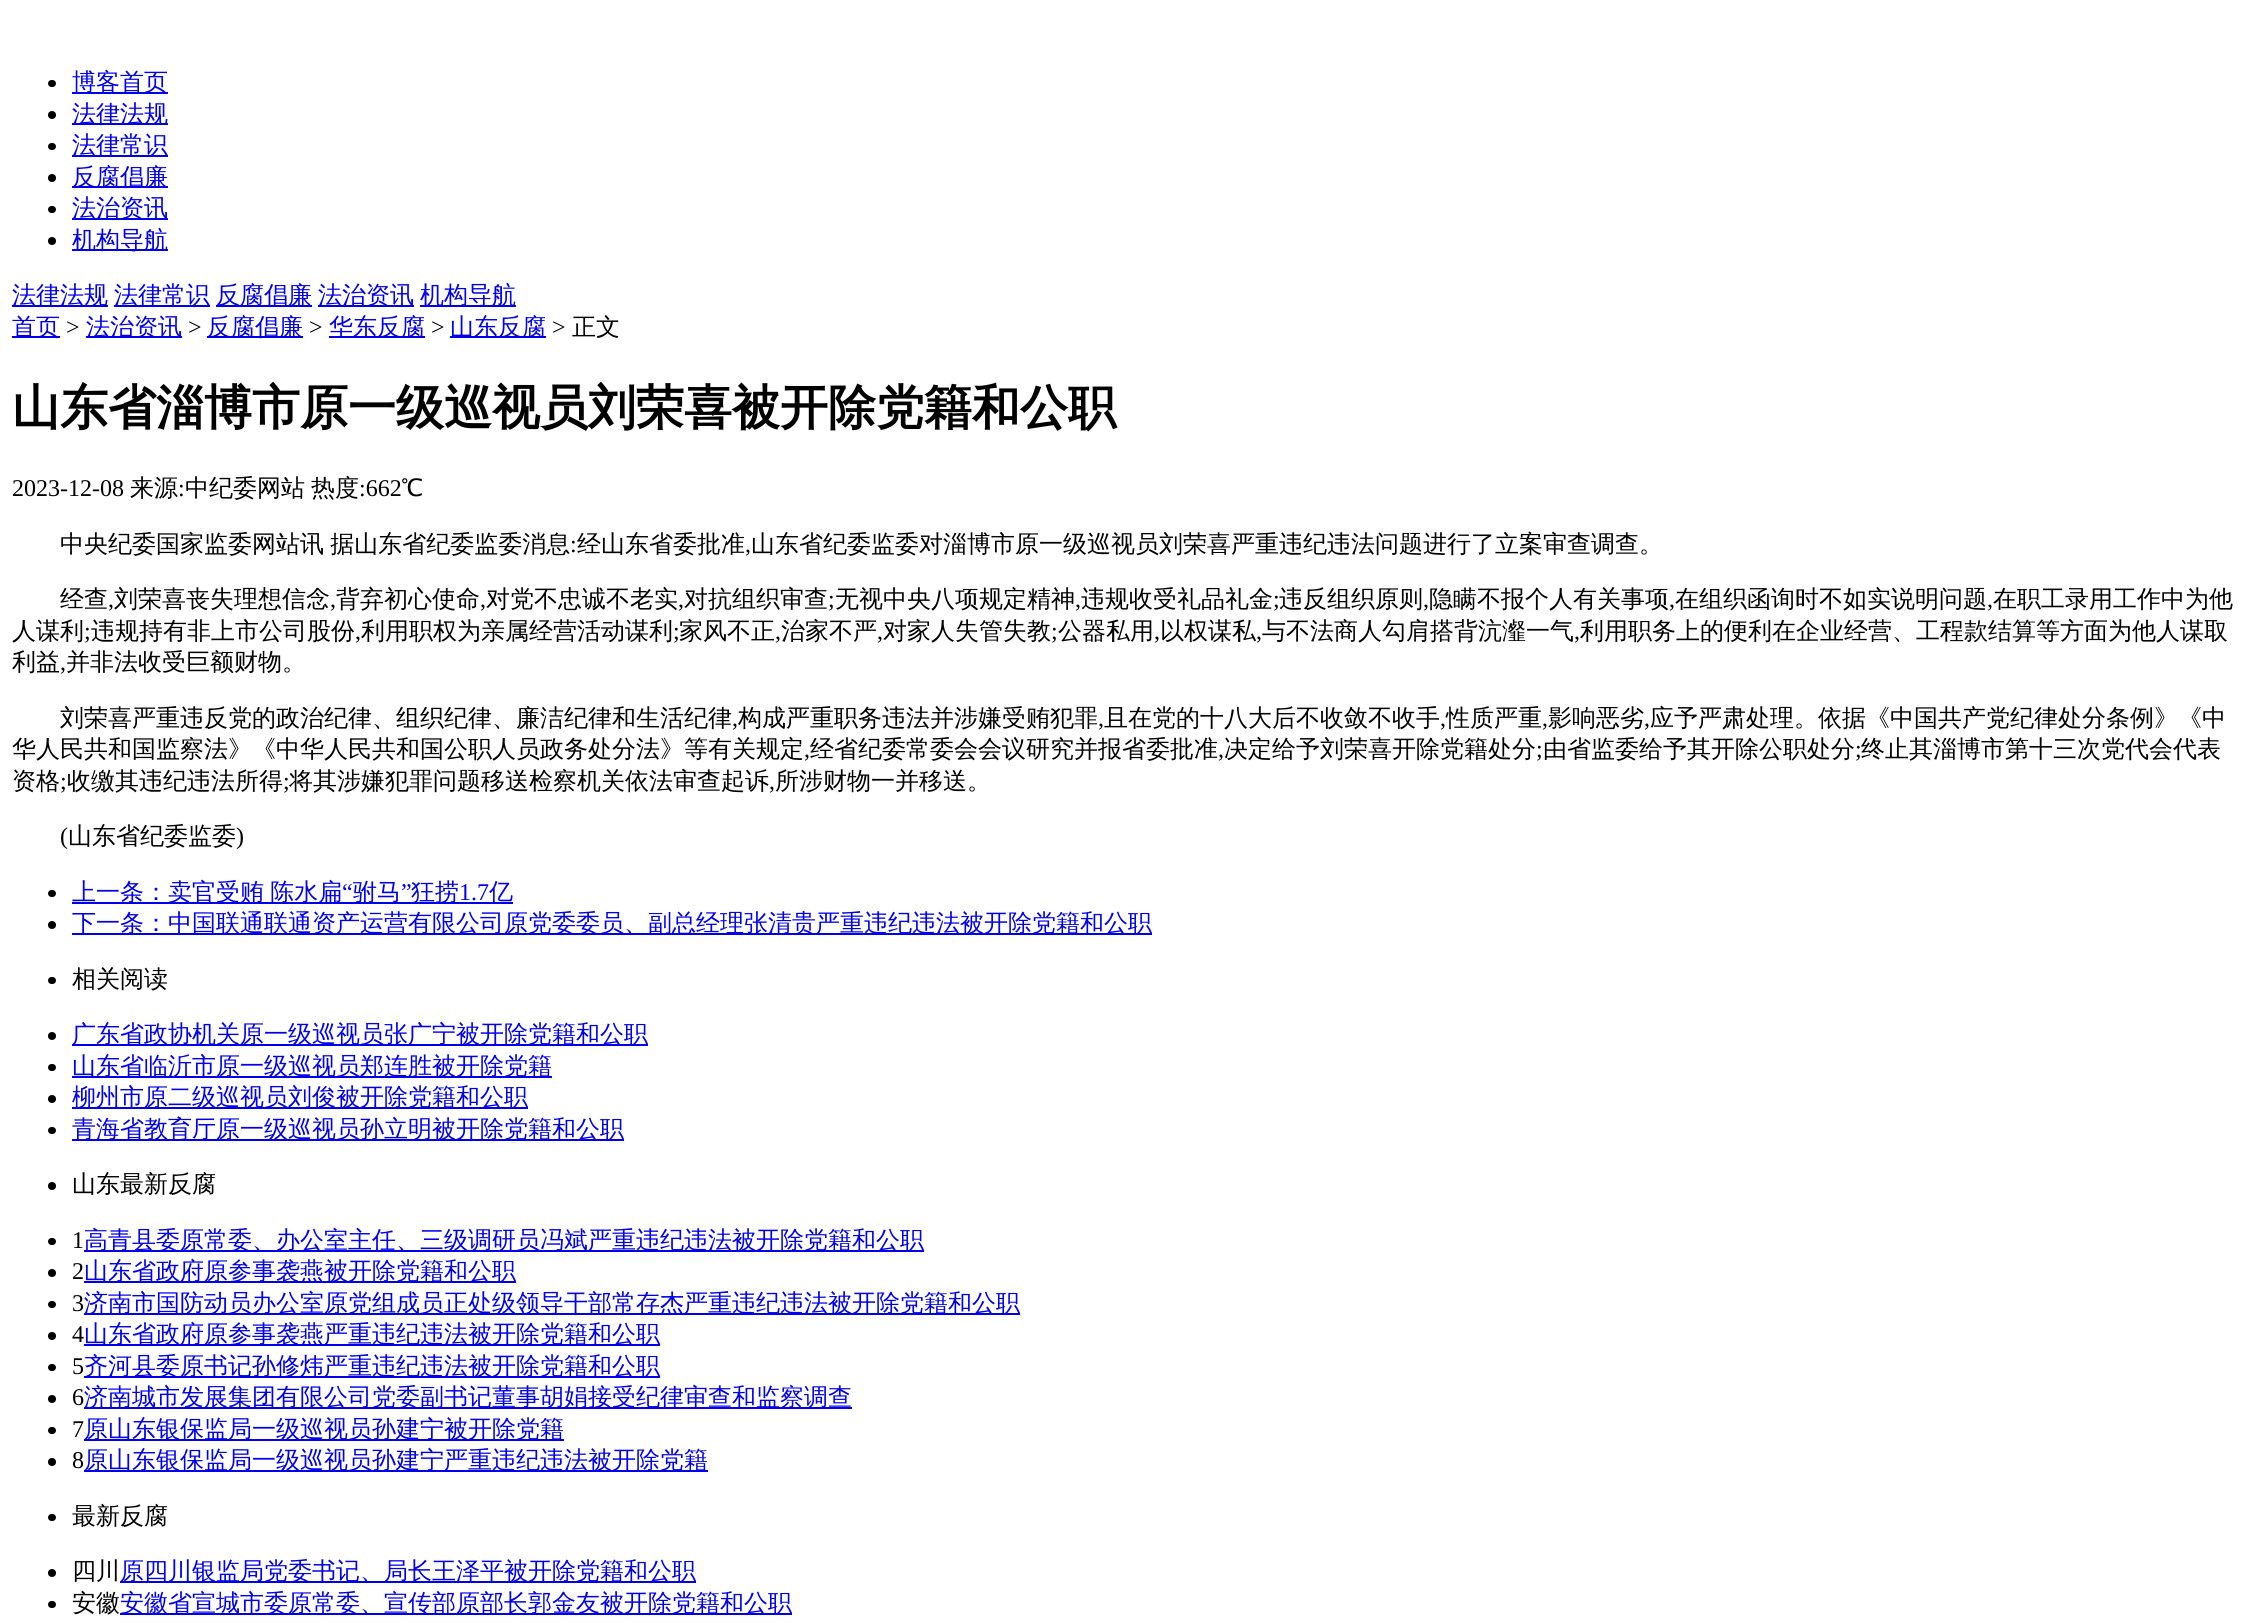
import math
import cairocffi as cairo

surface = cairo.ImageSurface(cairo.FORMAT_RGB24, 2246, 1623)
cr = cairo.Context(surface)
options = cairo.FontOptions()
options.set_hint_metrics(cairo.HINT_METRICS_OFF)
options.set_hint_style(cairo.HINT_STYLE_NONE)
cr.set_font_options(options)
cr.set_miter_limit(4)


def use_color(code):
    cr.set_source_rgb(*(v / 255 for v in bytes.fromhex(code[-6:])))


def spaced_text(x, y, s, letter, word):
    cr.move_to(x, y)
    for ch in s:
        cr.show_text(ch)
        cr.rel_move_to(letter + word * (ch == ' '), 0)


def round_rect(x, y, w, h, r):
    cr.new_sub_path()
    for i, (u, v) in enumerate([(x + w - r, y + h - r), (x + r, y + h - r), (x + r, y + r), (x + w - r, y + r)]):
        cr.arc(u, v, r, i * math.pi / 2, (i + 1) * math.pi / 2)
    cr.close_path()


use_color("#ffffff")
cr.paint()
use_color("#000000")
round_rect(48, 80, 8, 7, 3.5)
cr.fill()
use_color("#0000ee")
cr.rectangle(72, 92, 96, 2)
cr.fill()
cr.select_font_face("WenQuanYi Zen Hei Medium")
cr.set_font_size(24)
cr.move_to(72, 90)
cr.show_text("博客首页")
use_color("#000000")
cr.new_path()
cr.arc(52, 115, 4, 0, 2 * math.pi)
cr.fill()
use_color("#0000ee")
cr.rectangle(72, 123, 96, 2)
cr.fill()
cr.move_to(72, 122)
cr.show_text("法律法规")
use_color("#000000")
round_rect(48, 143, 8, 7, 3.5)
cr.fill()
use_color("#0000ee")
cr.rectangle(72, 155, 96, 2)
cr.fill()
cr.move_to(72, 153)
cr.show_text("法律常识")
use_color("#000000")
cr.new_path()
cr.arc(52, 178, 4, 0, 2 * math.pi)
cr.fill()
use_color("#0000ee")
cr.rectangle(72, 186, 96, 2)
cr.fill()
cr.move_to(72, 185)
cr.show_text("反腐倡廉")
use_color("#000000")
round_rect(48, 206, 8, 7, 3.5)
cr.fill()
use_color("#0000ee")
cr.rectangle(72, 218, 96, 2)
cr.fill()
cr.move_to(72, 216)
cr.show_text("法治资讯")
use_color("#000000")
cr.new_path()
cr.arc(52, 241, 4, 0, 2 * math.pi)
cr.fill()
use_color("#0000ee")
cr.rectangle(72, 249, 96, 2)
cr.fill()
cr.move_to(72, 248)
cr.show_text("机构导航")
cr.rectangle(12, 305, 96, 2)
cr.fill()
cr.move_to(12, 303)
cr.show_text("法律法规")
cr.rectangle(114, 305, 96, 2)
cr.fill()
cr.move_to(114, 303)
cr.show_text("法律常识")
cr.rectangle(216, 305, 96, 2)
cr.fill()
cr.move_to(216, 303)
cr.show_text("反腐倡廉")
cr.rectangle(318, 305, 96, 2)
cr.fill()
cr.move_to(318, 303)
cr.show_text("法治资讯")
cr.rectangle(420, 305, 96, 2)
cr.fill()
cr.move_to(420, 303)
cr.show_text("机构导航")
cr.rectangle(12, 336, 48, 2)
cr.fill()
cr.move_to(12, 335)
cr.show_text("首页")
cr.select_font_face("Liberation Serif")
use_color("#000000")
cr.move_to(66, 335)
cr.show_text(">")
use_color("#0000ee")
cr.rectangle(86, 336, 96, 2)
cr.fill()
cr.select_font_face("WenQuanYi Zen Hei Medium")
cr.move_to(86, 335)
cr.show_text("法治资讯")
cr.select_font_face("Liberation Serif")
use_color("#000000")
cr.move_to(188, 335)
cr.show_text(">")
use_color("#0000ee")
cr.rectangle(207, 336, 96, 2)
cr.fill()
cr.select_font_face("WenQuanYi Zen Hei Medium")
cr.move_to(207, 335)
cr.show_text("反腐倡廉")
cr.select_font_face("Liberation Serif")
use_color("#000000")
cr.move_to(309, 335)
cr.show_text(">")
use_color("#0000ee")
cr.rectangle(329, 336, 96, 2)
cr.fill()
cr.select_font_face("WenQuanYi Zen Hei Medium")
cr.move_to(329, 335)
cr.show_text("华东反腐")
cr.select_font_face("Liberation Serif")
use_color("#000000")
cr.move_to(431, 335)
cr.show_text(">")
use_color("#0000ee")
cr.rectangle(450, 336, 96, 2)
cr.fill()
cr.select_font_face("WenQuanYi Zen Hei Medium")
cr.move_to(450, 335)
cr.show_text("山东反腐")
cr.select_font_face("Liberation Serif")
use_color("#000000")
cr.move_to(552, 335)
cr.show_text(">")
cr.select_font_face("WenQuanYi Zen Hei Medium")
cr.move_to(572, 335)
cr.show_text("正文")
cr.select_font_face("WenQuanYi Zen Hei", cairo.FONT_SLANT_NORMAL, cairo.FONT_WEIGHT_BOLD)
cr.set_font_size(48)
cr.move_to(12, 424)
cr.show_text("山东省淄博市原一级巡视员刘荣喜被开除党籍和公职")
cr.select_font_face("Liberation Serif")
cr.set_font_size(24)
cr.move_to(12, 496)
cr.show_text("2023-12-08")
cr.select_font_face("WenQuanYi Zen Hei Medium")
cr.move_to(130, 496)
cr.show_text("来源")
cr.select_font_face("Liberation Serif")
cr.move_to(178, 496)
cr.show_text(":")
cr.select_font_face("WenQuanYi Zen Hei Medium")
cr.move_to(185, 496)
cr.show_text("中纪委网站")
cr.move_to(311, 496)
cr.show_text("热度")
cr.select_font_face("Liberation Serif")
cr.move_to(359, 496)
cr.show_text(":662")
cr.select_font_face("WenQuanYi Zen Hei Medium")
cr.move_to(401, 496)
cr.show_text("℃")
spaced_text(60, 552, "中央纪委国家监委网站讯 据山东省纪委监委消息", 0, -1)
cr.select_font_face("Liberation Serif")
cr.move_to(570, 552)
cr.show_text(":")
cr.select_font_face("WenQuanYi Zen Hei Medium")
cr.move_to(577, 552)
cr.show_text("经山东省委批准")
cr.select_font_face("Liberation Serif")
cr.move_to(745, 552)
cr.show_text(",")
cr.select_font_face("WenQuanYi Zen Hei Medium")
cr.move_to(751, 552)
cr.show_text("山东省纪委监委对淄博市原一级巡视员刘荣喜严重违纪违法问题进行了立案审查调查。")
cr.move_to(60, 607)
cr.show_text("经查")
cr.select_font_face("Liberation Serif")
cr.move_to(108, 607)
cr.show_text(",")
cr.select_font_face("WenQuanYi Zen Hei Medium")
cr.move_to(114, 607)
cr.show_text("刘荣喜丧失理想信念")
cr.select_font_face("Liberation Serif")
cr.move_to(330, 607)
cr.show_text(",")
cr.select_font_face("WenQuanYi Zen Hei Medium")
cr.move_to(336, 607)
cr.show_text("背弃初心使命")
cr.select_font_face("Liberation Serif")
cr.move_to(480, 607)
cr.show_text(",")
cr.select_font_face("WenQuanYi Zen Hei Medium")
cr.move_to(486, 607)
cr.show_text("对党不忠诚不老实")
cr.select_font_face("Liberation Serif")
cr.move_to(678, 607)
cr.show_text(",")
cr.select_font_face("WenQuanYi Zen Hei Medium")
cr.move_to(684, 607)
cr.show_text("对抗组织审查")
cr.select_font_face("Liberation Serif")
cr.move_to(828, 607)
cr.show_text(";")
cr.select_font_face("WenQuanYi Zen Hei Medium")
cr.move_to(835, 607)
cr.show_text("无视中央八项规定精神")
cr.select_font_face("Liberation Serif")
cr.move_to(1075, 607)
cr.show_text(",")
cr.select_font_face("WenQuanYi Zen Hei Medium")
cr.move_to(1081, 607)
cr.show_text("违规收受礼品礼金")
cr.select_font_face("Liberation Serif")
cr.move_to(1273, 607)
cr.show_text(";")
cr.select_font_face("WenQuanYi Zen Hei Medium")
cr.move_to(1279, 607)
cr.show_text("违反组织原则")
cr.select_font_face("Liberation Serif")
cr.move_to(1423, 607)
cr.show_text(",")
cr.select_font_face("WenQuanYi Zen Hei Medium")
cr.move_to(1429, 607)
cr.show_text("隐瞒不报个人有关事项")
cr.select_font_face("Liberation Serif")
cr.move_to(1669, 607)
cr.show_text(",")
cr.select_font_face("WenQuanYi Zen Hei Medium")
cr.move_to(1675, 607)
cr.show_text("在组织函询时不如实说明问题")
cr.select_font_face("Liberation Serif")
cr.move_to(1987, 607)
cr.show_text(",")
cr.select_font_face("WenQuanYi Zen Hei Medium")
cr.move_to(1993, 607)
cr.show_text("在职工录用工作中为他")
cr.move_to(12, 639)
cr.show_text("人谋利")
cr.select_font_face("Liberation Serif")
cr.move_to(84, 639)
cr.show_text(";")
cr.select_font_face("WenQuanYi Zen Hei Medium")
cr.move_to(91, 639)
cr.show_text("违规持有非上市公司股份")
cr.select_font_face("Liberation Serif")
cr.move_to(355, 639)
cr.show_text(",")
cr.select_font_face("WenQuanYi Zen Hei Medium")
cr.move_to(361, 639)
cr.show_text("利用职权为亲属经营活动谋利")
cr.select_font_face("Liberation Serif")
cr.move_to(673, 639)
cr.show_text(";")
cr.select_font_face("WenQuanYi Zen Hei Medium")
cr.move_to(679, 639)
cr.show_text("家风不正")
cr.select_font_face("Liberation Serif")
cr.move_to(775, 639)
cr.show_text(",")
cr.select_font_face("WenQuanYi Zen Hei Medium")
cr.move_to(781, 639)
cr.show_text("治家不严")
cr.select_font_face("Liberation Serif")
cr.move_to(877, 639)
cr.show_text(",")
cr.select_font_face("WenQuanYi Zen Hei Medium")
cr.move_to(883, 639)
cr.show_text("对家人失管失教")
cr.select_font_face("Liberation Serif")
cr.move_to(1051, 639)
cr.show_text(";")
cr.select_font_face("WenQuanYi Zen Hei Medium")
cr.move_to(1058, 639)
cr.show_text("公器私用")
cr.select_font_face("Liberation Serif")
cr.move_to(1154, 639)
cr.show_text(",")
cr.select_font_face("WenQuanYi Zen Hei Medium")
cr.move_to(1160, 639)
cr.show_text("以权谋私")
cr.select_font_face("Liberation Serif")
cr.move_to(1256, 639)
cr.show_text(",")
cr.select_font_face("WenQuanYi Zen Hei Medium")
cr.move_to(1262, 639)
cr.show_text("与不法商人勾肩搭背沆瀣一气")
cr.select_font_face("Liberation Serif")
cr.move_to(1574, 639)
cr.show_text(",")
cr.select_font_face("WenQuanYi Zen Hei Medium")
cr.move_to(1580, 639)
cr.show_text("利用职务上的便利在企业经营、工程款结算等方面为他人谋取")
cr.move_to(12, 670)
cr.show_text("利益")
cr.select_font_face("Liberation Serif")
cr.move_to(60, 670)
cr.show_text(",")
cr.select_font_face("WenQuanYi Zen Hei Medium")
cr.move_to(66, 670)
cr.show_text("并非法收受巨额财物。")
cr.move_to(60, 726)
cr.show_text("刘荣喜严重违反党的政治纪律、组织纪律、廉洁纪律和生活纪律")
cr.select_font_face("Liberation Serif")
cr.move_to(732, 726)
cr.show_text(",")
cr.select_font_face("WenQuanYi Zen Hei Medium")
cr.move_to(738, 726)
cr.show_text("构成严重职务违法并涉嫌受贿犯罪")
cr.select_font_face("Liberation Serif")
cr.move_to(1098, 726)
cr.show_text(",")
cr.select_font_face("WenQuanYi Zen Hei Medium")
cr.move_to(1104, 726)
cr.show_text("且在党的十八大后不收敛不收手")
cr.select_font_face("Liberation Serif")
cr.move_to(1440, 726)
cr.show_text(",")
cr.select_font_face("WenQuanYi Zen Hei Medium")
cr.move_to(1446, 726)
cr.show_text("性质严重")
cr.select_font_face("Liberation Serif")
cr.move_to(1542, 726)
cr.show_text(",")
cr.select_font_face("WenQuanYi Zen Hei Medium")
cr.move_to(1548, 726)
cr.show_text("影响恶劣")
cr.select_font_face("Liberation Serif")
cr.move_to(1644, 726)
cr.show_text(",")
cr.select_font_face("WenQuanYi Zen Hei Medium")
cr.move_to(1650, 726)
cr.show_text("应予严肃处理。依据《中国共产党纪律处分条例》《中")
cr.move_to(12, 757)
cr.show_text("华人民共和国监察法》《中华人民共和国公职人员政务处分法》等有关规定")
cr.select_font_face("Liberation Serif")
cr.move_to(804, 757)
cr.show_text(",")
cr.select_font_face("WenQuanYi Zen Hei Medium")
cr.move_to(810, 757)
cr.show_text("经省纪委常委会会议研究并报省委批准")
cr.select_font_face("Liberation Serif")
cr.move_to(1218, 757)
cr.show_text(",")
cr.select_font_face("WenQuanYi Zen Hei Medium")
cr.move_to(1224, 757)
cr.show_text("决定给予刘荣喜开除党籍处分")
cr.select_font_face("Liberation Serif")
cr.move_to(1536, 757)
cr.show_text(";")
cr.select_font_face("WenQuanYi Zen Hei Medium")
cr.move_to(1543, 757)
cr.show_text("由省监委给予其开除公职处分")
cr.select_font_face("Liberation Serif")
cr.move_to(1855, 757)
cr.show_text(";")
cr.select_font_face("WenQuanYi Zen Hei Medium")
cr.move_to(1861, 757)
cr.show_text("终止其淄博市第十三次党代会代表")
cr.move_to(12, 789)
cr.show_text("资格")
cr.select_font_face("Liberation Serif")
cr.move_to(60, 789)
cr.show_text(";")
cr.select_font_face("WenQuanYi Zen Hei Medium")
cr.move_to(67, 789)
cr.show_text("收缴其违纪违法所得")
cr.select_font_face("Liberation Serif")
cr.move_to(283, 789)
cr.show_text(";")
cr.select_font_face("WenQuanYi Zen Hei Medium")
cr.move_to(289, 789)
cr.show_text("将其涉嫌犯罪问题移送检察机关依法审查起诉")
cr.select_font_face("Liberation Serif")
cr.move_to(769, 789)
cr.show_text(",")
cr.select_font_face("WenQuanYi Zen Hei Medium")
cr.move_to(775, 789)
cr.show_text("所涉财物一并移送。")
cr.select_font_face("Liberation Serif")
cr.move_to(60, 844)
cr.show_text("(")
cr.select_font_face("WenQuanYi Zen Hei Medium")
cr.move_to(68, 844)
cr.show_text("山东省纪委监委")
cr.select_font_face("Liberation Serif")
cr.move_to(236, 844)
cr.show_text(")")
round_rect(48, 890, 8, 7, 3.5)
cr.fill()
use_color("#0000ee")
cr.rectangle(72, 902, 441, 2)
cr.fill()
cr.select_font_face("WenQuanYi Zen Hei Medium")
spaced_text(72, 900, "上一条：卖官受贿 陈水扁", 0, -1)
cr.select_font_face("Liberation Serif")
cr.move_to(342, 900)
cr.show_text("“")
cr.select_font_face("WenQuanYi Zen Hei Medium")
cr.move_to(353, 900)
cr.show_text("驸马")
cr.select_font_face("Liberation Serif")
cr.move_to(401, 900)
cr.show_text("”")
cr.select_font_face("WenQuanYi Zen Hei Medium")
cr.move_to(411, 900)
cr.show_text("狂捞")
cr.select_font_face("Liberation Serif")
cr.move_to(459, 900)
cr.show_text("1.7")
cr.select_font_face("WenQuanYi Zen Hei Medium")
cr.move_to(489, 900)
cr.show_text("亿")
use_color("#000000")
cr.new_path()
cr.arc(52, 925, 4, 0, 2 * math.pi)
cr.fill()
use_color("#0000ee")
cr.rectangle(72, 933, 1080, 2)
cr.fill()
cr.move_to(72, 931)
cr.show_text("下一条：中国联通联通资产运营有限公司原党委委员、副总经理张清贵严重违纪违法被开除党籍和公职")
use_color("#000000")
round_rect(48, 977, 8, 7, 3.5)
cr.fill()
cr.move_to(72, 987)
cr.show_text("相关阅读")
cr.new_path()
cr.arc(52, 1036, 4, 0, 2 * math.pi)
cr.fill()
use_color("#0000ee")
cr.rectangle(72, 1044, 576, 2)
cr.fill()
cr.move_to(72, 1042)
cr.show_text("广东省政协机关原一级巡视员张广宁被开除党籍和公职")
use_color("#000000")
round_rect(48, 1064, 8, 7, 3.5)
cr.fill()
use_color("#0000ee")
cr.rectangle(72, 1076, 480, 2)
cr.fill()
cr.move_to(72, 1074)
cr.show_text("山东省临沂市原一级巡视员郑连胜被开除党籍")
use_color("#000000")
cr.new_path()
cr.arc(52, 1099, 4, 0, 2 * math.pi)
cr.fill()
use_color("#0000ee")
cr.rectangle(72, 1107, 456, 2)
cr.fill()
cr.move_to(72, 1105)
cr.show_text("柳州市原二级巡视员刘俊被开除党籍和公职")
use_color("#000000")
round_rect(48, 1127, 8, 7, 3.5)
cr.fill()
use_color("#0000ee")
cr.rectangle(72, 1139, 552, 2)
cr.fill()
cr.move_to(72, 1137)
cr.show_text("青海省教育厅原一级巡视员孙立明被开除党籍和公职")
use_color("#000000")
cr.new_path()
cr.arc(52, 1186, 4, 0, 2 * math.pi)
cr.fill()
cr.move_to(72, 1192)
cr.show_text("山东最新反腐")
round_rect(48, 1238, 8, 7, 3.5)
cr.fill()
cr.select_font_face("Liberation Serif")
cr.move_to(72, 1248)
cr.show_text("1")
use_color("#0000ee")
cr.rectangle(84, 1250, 840, 2)
cr.fill()
cr.select_font_face("WenQuanYi Zen Hei Medium")
cr.move_to(84, 1248)
cr.show_text("高青县委原常委、办公室主任、三级调研员冯斌严重违纪违法被开除党籍和公职")
use_color("#000000")
cr.new_path()
cr.arc(52, 1273, 4, 0, 2 * math.pi)
cr.fill()
cr.select_font_face("Liberation Serif")
cr.move_to(72, 1279)
cr.show_text("2")
use_color("#0000ee")
cr.rectangle(84, 1281, 432, 2)
cr.fill()
cr.select_font_face("WenQuanYi Zen Hei Medium")
cr.move_to(84, 1279)
cr.show_text("山东省政府原参事袭燕被开除党籍和公职")
use_color("#000000")
round_rect(48, 1301, 8, 7, 3.5)
cr.fill()
cr.select_font_face("Liberation Serif")
cr.move_to(72, 1311)
cr.show_text("3")
use_color("#0000ee")
cr.rectangle(84, 1313, 936, 2)
cr.fill()
cr.select_font_face("WenQuanYi Zen Hei Medium")
cr.move_to(84, 1311)
cr.show_text("济南市国防动员办公室原党组成员正处级领导干部常存杰严重违纪违法被开除党籍和公职")
use_color("#000000")
cr.new_path()
cr.arc(52, 1336, 4, 0, 2 * math.pi)
cr.fill()
cr.select_font_face("Liberation Serif")
cr.move_to(72, 1342)
cr.show_text("4")
use_color("#0000ee")
cr.rectangle(84, 1344, 576, 2)
cr.fill()
cr.select_font_face("WenQuanYi Zen Hei Medium")
cr.move_to(84, 1342)
cr.show_text("山东省政府原参事袭燕严重违纪违法被开除党籍和公职")
use_color("#000000")
round_rect(48, 1364, 8, 7, 3.5)
cr.fill()
cr.select_font_face("Liberation Serif")
cr.move_to(72, 1374)
cr.show_text("5")
use_color("#0000ee")
cr.rectangle(84, 1376, 576, 2)
cr.fill()
cr.select_font_face("WenQuanYi Zen Hei Medium")
cr.move_to(84, 1374)
cr.show_text("齐河县委原书记孙修炜严重违纪违法被开除党籍和公职")
use_color("#000000")
cr.new_path()
cr.arc(52, 1399, 4, 0, 2 * math.pi)
cr.fill()
cr.select_font_face("Liberation Serif")
cr.move_to(72, 1405)
cr.show_text("6")
use_color("#0000ee")
cr.rectangle(84, 1407, 768, 2)
cr.fill()
cr.select_font_face("WenQuanYi Zen Hei Medium")
cr.move_to(84, 1405)
cr.show_text("济南城市发展集团有限公司党委副书记董事胡娟接受纪律审查和监察调查")
use_color("#000000")
round_rect(48, 1427, 8, 7, 3.5)
cr.fill()
cr.select_font_face("Liberation Serif")
cr.move_to(72, 1437)
cr.show_text("7")
use_color("#0000ee")
cr.rectangle(84, 1439, 480, 2)
cr.fill()
cr.select_font_face("WenQuanYi Zen Hei Medium")
cr.move_to(84, 1437)
cr.show_text("原山东银保监局一级巡视员孙建宁被开除党籍")
use_color("#000000")
cr.new_path()
cr.arc(52, 1462, 4, 0, 2 * math.pi)
cr.fill()
cr.select_font_face("Liberation Serif")
cr.move_to(72, 1468)
cr.show_text("8")
use_color("#0000ee")
cr.rectangle(84, 1470, 624, 2)
cr.fill()
cr.select_font_face("WenQuanYi Zen Hei Medium")
cr.move_to(84, 1468)
cr.show_text("原山东银保监局一级巡视员孙建宁严重违纪违法被开除党籍")
use_color("#000000")
round_rect(48, 1514, 8, 7, 3.5)
cr.fill()
cr.move_to(72, 1524)
cr.show_text("最新反腐")
cr.new_path()
cr.arc(52, 1573, 4, 0, 2 * math.pi)
cr.fill()
cr.move_to(72, 1579)
cr.show_text("四川")
use_color("#0000ee")
cr.rectangle(120, 1581, 576, 2)
cr.fill()
cr.move_to(120, 1579)
cr.show_text("原四川银监局党委书记、局长王泽平被开除党籍和公职")
use_color("#000000")
round_rect(48, 1601, 8, 7, 3.5)
cr.fill()
cr.move_to(72, 1611)
cr.show_text("安徽")
use_color("#0000ee")
cr.rectangle(120, 1613, 672, 2)
cr.fill()
cr.move_to(120, 1611)
cr.show_text("安徽省宣城市委原常委、宣传部原部长郭金友被开除党籍和公职")
surface.write_to_png("result.png")
